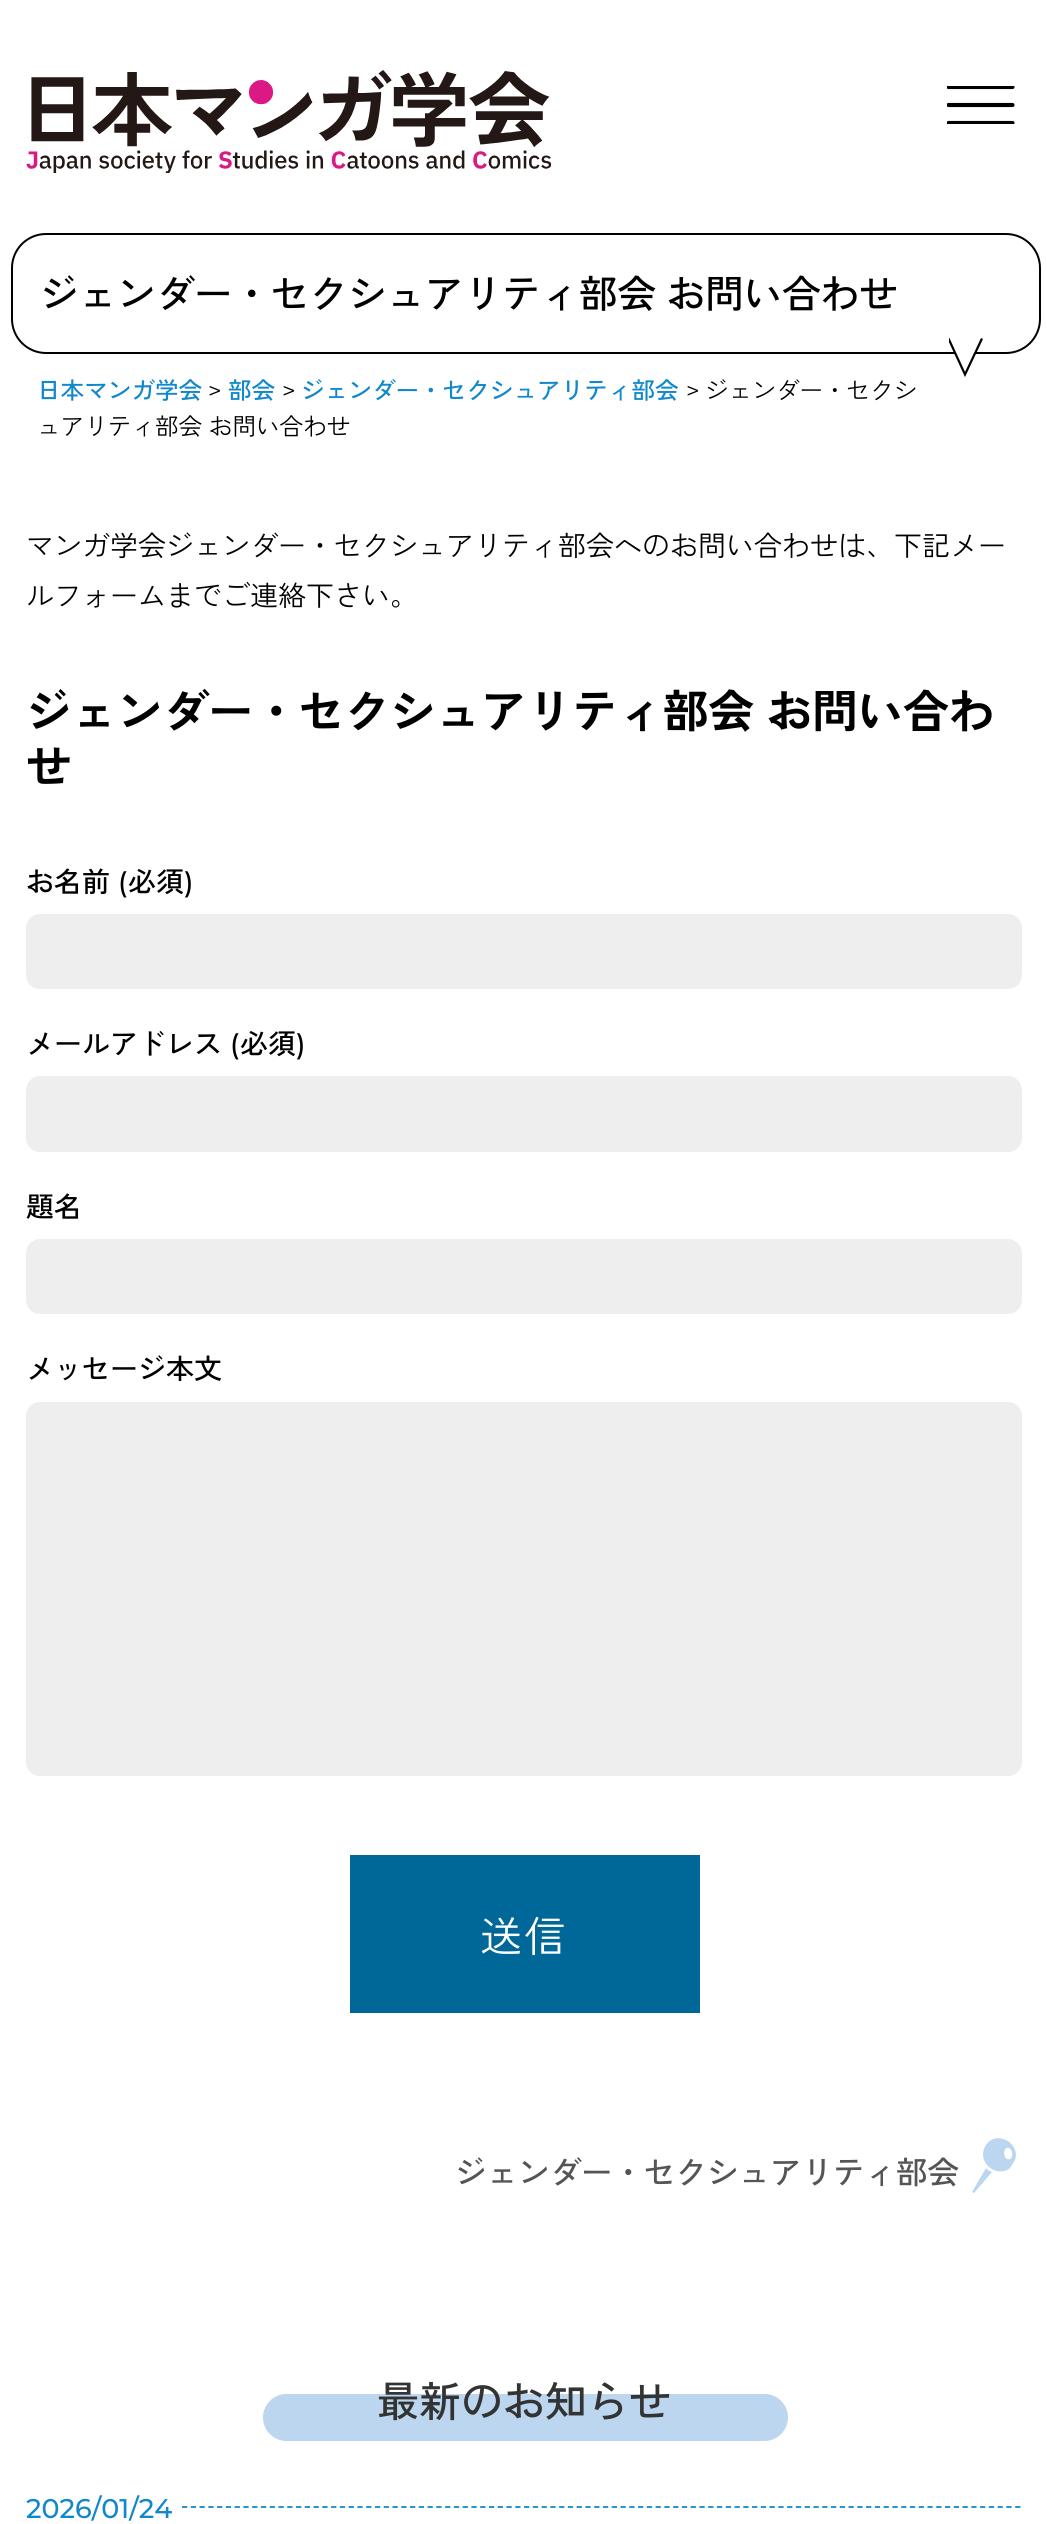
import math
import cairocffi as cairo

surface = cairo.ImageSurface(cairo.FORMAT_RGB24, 1047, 2524)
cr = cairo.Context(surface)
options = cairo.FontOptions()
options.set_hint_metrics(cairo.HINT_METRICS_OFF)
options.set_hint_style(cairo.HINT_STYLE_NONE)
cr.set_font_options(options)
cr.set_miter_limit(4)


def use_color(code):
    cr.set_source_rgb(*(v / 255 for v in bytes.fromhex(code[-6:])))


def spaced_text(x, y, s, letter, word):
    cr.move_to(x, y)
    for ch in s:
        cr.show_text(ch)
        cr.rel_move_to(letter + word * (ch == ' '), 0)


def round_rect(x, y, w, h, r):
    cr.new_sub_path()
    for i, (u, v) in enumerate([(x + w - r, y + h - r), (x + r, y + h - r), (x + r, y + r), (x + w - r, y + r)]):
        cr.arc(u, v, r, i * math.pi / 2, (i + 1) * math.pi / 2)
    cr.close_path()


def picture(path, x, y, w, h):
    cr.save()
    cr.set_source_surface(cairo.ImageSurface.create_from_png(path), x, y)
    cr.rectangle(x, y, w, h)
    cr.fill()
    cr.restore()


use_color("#ffffff")
cr.paint()
picture("img1.png", 26, 70, 525, 103)
cr.save()
cr.rectangle(947, 86, 68, 38)
cr.clip()
cr.new_path()
cr.move_to(948.5, 87)
cr.line_to(1012.5, 87)
cr.move_to(948.5, 105)
cr.line_to(1012.5, 105)
cr.move_to(948.5, 123)
cr.line_to(1012.5, 123)
use_color("#040000")
cr.set_line_width(4.1)
cr.set_line_cap(cairo.LINE_CAP_ROUND)
cr.set_line_join(cairo.LINE_JOIN_ROUND)
cr.stroke()
cr.restore()
round_rect(12, 234, 1028, 119, 34)
use_color("#000000")
cr.stroke()
cr.select_font_face("Zen Kaku Gothic Antique Medium")
cr.set_font_size(38.5)
cr.move_to(40, 308)
cr.show_text("ジェンダー・セクシュアリティ部会 お問い合わせ")
use_color("#ffffff")
cr.new_path()
cr.move_to(948.5, 338.5)
cr.line_to(965, 374.5)
cr.line_to(982, 338.5)
cr.fill()
cr.save()
cr.rectangle(949, 338, 35, 40)
cr.clip()
cr.new_path()
cr.move_to(948.5, 338.5)
cr.line_to(965, 374.5)
cr.line_to(982, 338.5)
use_color("#040000")
cr.set_line_width(2.2)
cr.stroke()
cr.restore()
cr.set_font_size(23.6)
use_color("#1188cc")
cr.move_to(37, 399)
cr.show_text("日本マンガ学会")
cr.select_font_face("Montserrat")
use_color("#000000")
cr.move_to(208, 399)
cr.show_text(">")
cr.select_font_face("Zen Kaku Gothic Antique Medium")
use_color("#1188cc")
cr.move_to(228, 399)
cr.show_text("部会")
cr.select_font_face("Montserrat")
use_color("#000000")
cr.move_to(282, 399)
cr.show_text(">")
cr.select_font_face("Zen Kaku Gothic Antique Medium")
use_color("#1188cc")
cr.move_to(301, 399)
cr.show_text("ジェンダー・セクシュアリティ部会")
cr.select_font_face("Montserrat")
use_color("#000000")
cr.move_to(686, 399)
cr.show_text(">")
cr.select_font_face("Zen Kaku Gothic Antique")
cr.move_to(705, 399)
cr.show_text("ジェンダー・セクシ")
cr.move_to(37, 435)
cr.show_text("ュアリティ部会 お問い合わせ")
cr.set_font_size(28)
cr.move_to(26, 556)
cr.show_text("マンガ学会ジェンダー・セクシュアリティ部会へのお問い合わせは、下記メー")
cr.move_to(26, 606)
cr.show_text("ルフォームまでご連絡下さい。")
cr.select_font_face("Zen Kaku Gothic Antique", cairo.FONT_SLANT_NORMAL, cairo.FONT_WEIGHT_BOLD)
cr.set_font_size(45.5)
cr.move_to(26, 728)
cr.show_text("ジェンダー・セクシュアリティ部会 お問い合わ")
cr.move_to(26, 783)
cr.show_text("せ")
cr.select_font_face("Zen Kaku Gothic Antique Medium")
cr.set_font_size(28)
cr.move_to(26, 892)
cr.show_text("お名前")
cr.select_font_face("Montserrat Medium")
cr.move_to(118, 892)
cr.show_text("(")
cr.select_font_face("Zen Kaku Gothic Antique Medium")
cr.move_to(128, 892)
cr.show_text("必須")
cr.select_font_face("Montserrat Medium")
cr.move_to(184, 892)
cr.show_text(")")
use_color("#eeeeee")
round_rect(26, 914, 996, 75, 14)
cr.fill()
cr.select_font_face("Zen Kaku Gothic Antique Medium")
use_color("#000000")
cr.move_to(26, 1054)
cr.show_text("メールアドレス")
cr.select_font_face("Montserrat Medium")
cr.move_to(230, 1054)
cr.show_text("(")
cr.select_font_face("Zen Kaku Gothic Antique Medium")
cr.move_to(240, 1054)
cr.show_text("必須")
cr.select_font_face("Montserrat Medium")
cr.move_to(296, 1054)
cr.show_text(")")
use_color("#eeeeee")
round_rect(26, 1076, 996, 76, 14)
cr.fill()
cr.select_font_face("Zen Kaku Gothic Antique Medium")
use_color("#000000")
cr.move_to(26, 1217)
cr.show_text("題名")
use_color("#eeeeee")
round_rect(26, 1239, 996, 75, 14)
cr.fill()
use_color("#000000")
cr.move_to(26, 1379)
cr.show_text("メッセージ本文")
use_color("#eeeeee")
round_rect(26, 1402, 996, 374, 14)
cr.fill()
use_color("#006898")
cr.rectangle(350, 1855, 350, 158)
cr.fill()
cr.select_font_face("Zen Kaku Gothic Antique")
cr.set_font_size(42)
use_color("#ffffff")
spaced_text(480, 1952, "送信", 2, 0)
cr.select_font_face("Zen Kaku Gothic Antique Medium")
cr.set_font_size(31.5)
use_color("#555555")
cr.move_to(455, 2184)
cr.show_text("ジェンダー・セクシュアリティ部会")
use_color("#bbd6ee")
cr.set_fill_rule(cairo.FILL_RULE_EVEN_ODD)
cr.new_path()
cr.move_to(974, 2193)
cr.line_to(992, 2172)
cr.curve_to(990, 2171, 987, 2170, 986, 2168)
cr.line_to(972, 2192)
cr.close_path()
cr.move_to(1015, 2160)
cr.line_to(1010, 2168)
cr.curve_to(997, 2179, 975, 2162, 986, 2145)
cr.curve_to(997, 2129, 1021, 2144, 1015, 2160)
cr.close_path()
cr.move_to(1009, 2148)
cr.curve_to(1004, 2146, 1002, 2156, 1007, 2159)
cr.curve_to(1013, 2161, 1014, 2151, 1009, 2148)
cr.close_path()
cr.fill()
round_rect(263, 2394, 525, 47, 23.5)
cr.fill()
cr.set_font_size(42)
use_color("#333333")
cr.move_to(377, 2417)
cr.show_text("最新のお知らせ")
cr.select_font_face("Montserrat Medium")
cr.set_font_size(27)
use_color("#1188cc")
cr.move_to(26, 2518)
cr.show_text("2026/01/24")
cr.save()
cr.set_fill_rule(cairo.FILL_RULE_WINDING)
cr.rectangle(26, 2489, 996, 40)
cr.clip()
cr.new_path()
cr.move_to(182, 2507)
cr.line_to(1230, 2507)
cr.set_line_width(1.8)
cr.set_dash([5.25, 3.52])
cr.stroke()
cr.restore()
surface.write_to_png("result.png")
